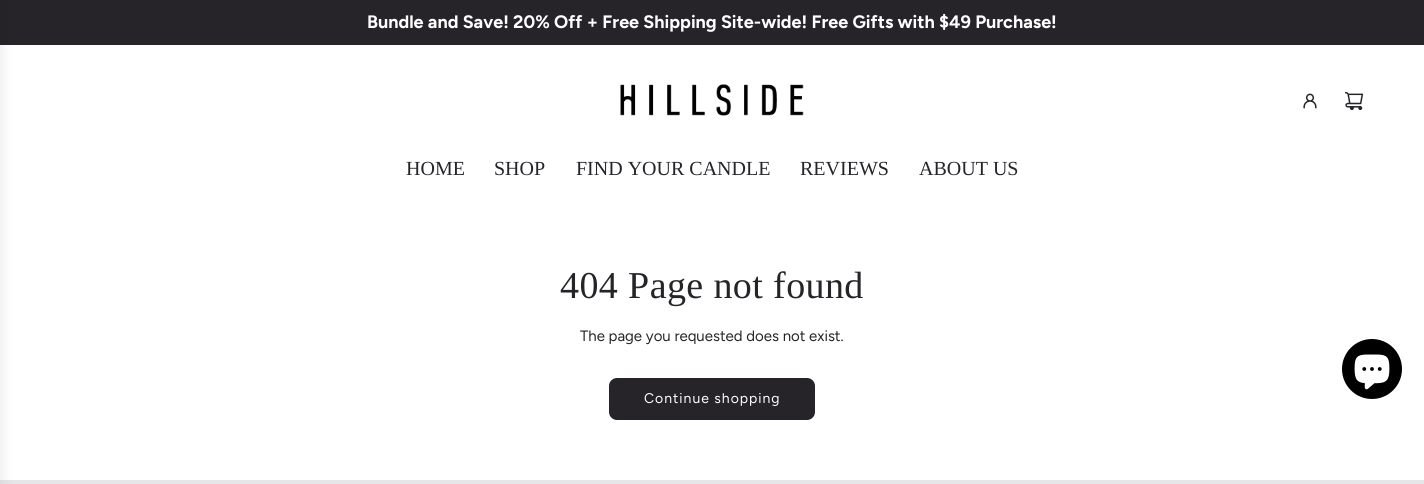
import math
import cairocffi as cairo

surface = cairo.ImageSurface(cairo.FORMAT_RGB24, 1424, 484)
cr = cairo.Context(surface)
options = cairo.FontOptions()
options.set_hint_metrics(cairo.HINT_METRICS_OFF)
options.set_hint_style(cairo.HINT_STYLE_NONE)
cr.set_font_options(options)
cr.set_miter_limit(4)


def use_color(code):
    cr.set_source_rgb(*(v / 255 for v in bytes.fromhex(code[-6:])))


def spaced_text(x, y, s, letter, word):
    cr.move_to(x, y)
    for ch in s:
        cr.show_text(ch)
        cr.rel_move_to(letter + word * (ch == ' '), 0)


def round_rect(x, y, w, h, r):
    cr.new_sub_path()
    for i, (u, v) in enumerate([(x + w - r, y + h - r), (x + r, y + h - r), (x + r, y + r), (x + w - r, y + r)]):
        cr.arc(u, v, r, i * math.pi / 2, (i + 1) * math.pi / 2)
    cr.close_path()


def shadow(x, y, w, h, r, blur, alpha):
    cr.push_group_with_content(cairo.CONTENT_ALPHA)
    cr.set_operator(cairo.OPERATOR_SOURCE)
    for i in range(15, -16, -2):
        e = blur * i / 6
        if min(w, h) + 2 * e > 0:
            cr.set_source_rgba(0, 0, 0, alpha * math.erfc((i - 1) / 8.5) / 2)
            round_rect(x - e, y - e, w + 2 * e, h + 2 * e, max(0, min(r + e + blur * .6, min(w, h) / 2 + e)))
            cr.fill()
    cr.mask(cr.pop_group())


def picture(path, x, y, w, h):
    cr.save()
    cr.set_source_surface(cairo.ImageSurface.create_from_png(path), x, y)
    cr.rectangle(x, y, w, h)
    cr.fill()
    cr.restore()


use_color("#ffffff")
cr.paint()
use_color("#262428")
cr.rectangle(0, 0, 1424, 45)
cr.fill()
cr.select_font_face("Figtree", cairo.FONT_SLANT_NORMAL, cairo.FONT_WEIGHT_BOLD)
cr.set_font_size(18)
use_color("#ffffff")
cr.move_to(367, 28)
cr.show_text("Bundle and Save! 20% Off + Free Shipping Site-wide! Free Gifts with $49 Purchase!")
use_color("#e6e5e7")
cr.rectangle(0, 480, 1424, 4)
cr.fill()
use_color("#000000")
shadow(-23, 5, 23, 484, 0, 7.5, 0.1)
picture("img1.png", 620, 84, 184, 32)
picture("img2.png", 1303, 93, 14, 16)
picture("img3.png", 1344, 91, 20, 20)
cr.select_font_face("Liberation Serif")
cr.set_font_size(20)
use_color("#262428")
cr.move_to(406, 175)
cr.show_text("HOME")
cr.move_to(494, 175)
cr.show_text("SHOP")
cr.move_to(576, 175)
cr.show_text("FIND YOUR CANDLE")
cr.move_to(800, 175)
cr.show_text("REVIEWS")
cr.move_to(919, 175)
cr.show_text("ABOUT US")
cr.set_font_size(38)
spaced_text(560, 298, "404 Page not found", 0.4, 0)
cr.select_font_face("Figtree")
cr.set_font_size(15)
cr.move_to(580, 341)
cr.show_text("The page you requested does not exist.")
round_rect(609, 378, 206, 42, 8)
cr.fill()
cr.set_font_size(14)
use_color("#ffffff")
spaced_text(644, 403, "Continue shopping", 1, 0)
use_color("#000000")
cr.new_path()
cr.arc(1372, 369, 30, 0, 2 * math.pi)
cr.fill()
picture("img4.png", 1354, 354, 36, 36)
surface.write_to_png("result.png")
